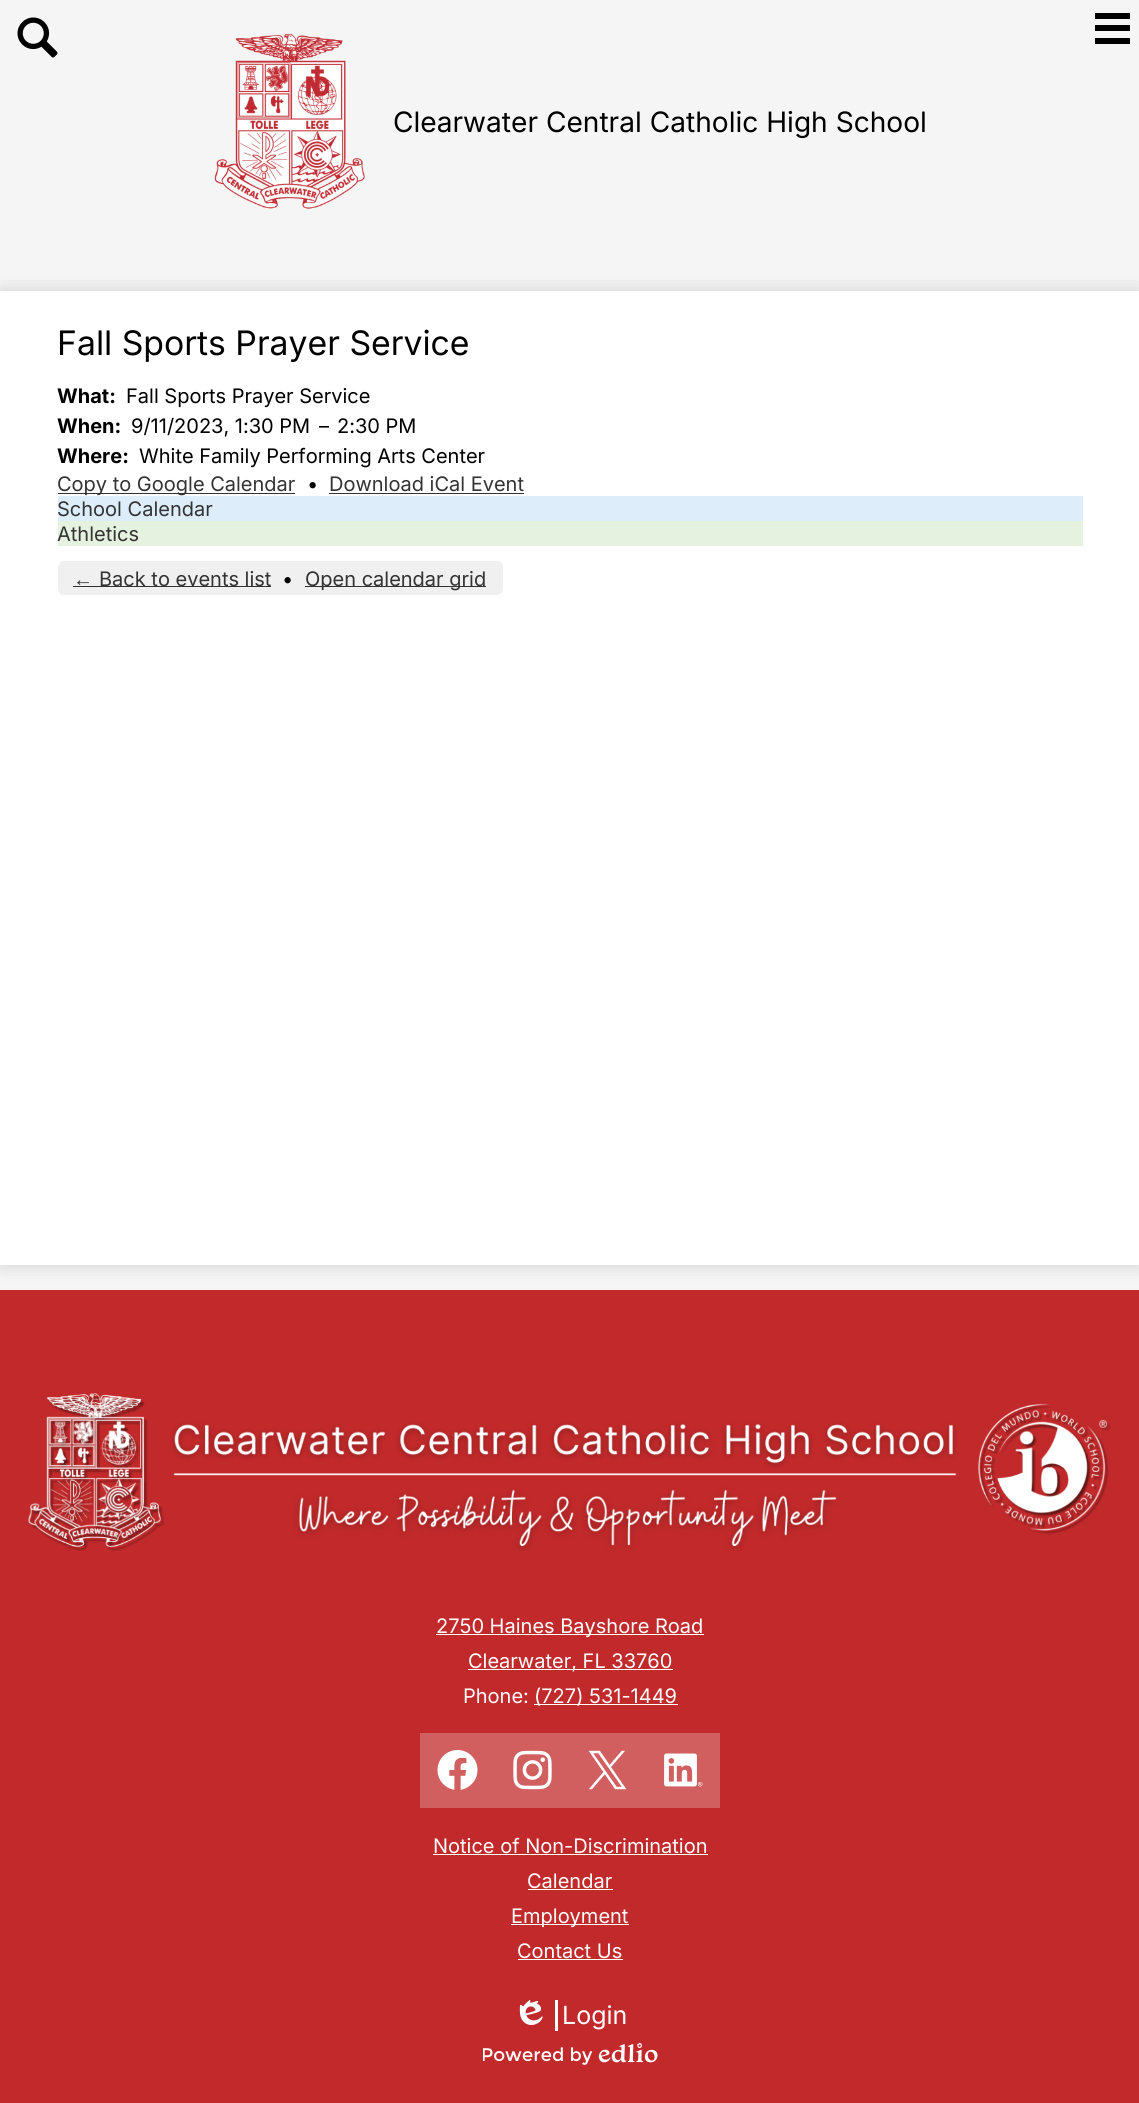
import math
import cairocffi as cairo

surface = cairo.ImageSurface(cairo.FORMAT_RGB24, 1139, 2103)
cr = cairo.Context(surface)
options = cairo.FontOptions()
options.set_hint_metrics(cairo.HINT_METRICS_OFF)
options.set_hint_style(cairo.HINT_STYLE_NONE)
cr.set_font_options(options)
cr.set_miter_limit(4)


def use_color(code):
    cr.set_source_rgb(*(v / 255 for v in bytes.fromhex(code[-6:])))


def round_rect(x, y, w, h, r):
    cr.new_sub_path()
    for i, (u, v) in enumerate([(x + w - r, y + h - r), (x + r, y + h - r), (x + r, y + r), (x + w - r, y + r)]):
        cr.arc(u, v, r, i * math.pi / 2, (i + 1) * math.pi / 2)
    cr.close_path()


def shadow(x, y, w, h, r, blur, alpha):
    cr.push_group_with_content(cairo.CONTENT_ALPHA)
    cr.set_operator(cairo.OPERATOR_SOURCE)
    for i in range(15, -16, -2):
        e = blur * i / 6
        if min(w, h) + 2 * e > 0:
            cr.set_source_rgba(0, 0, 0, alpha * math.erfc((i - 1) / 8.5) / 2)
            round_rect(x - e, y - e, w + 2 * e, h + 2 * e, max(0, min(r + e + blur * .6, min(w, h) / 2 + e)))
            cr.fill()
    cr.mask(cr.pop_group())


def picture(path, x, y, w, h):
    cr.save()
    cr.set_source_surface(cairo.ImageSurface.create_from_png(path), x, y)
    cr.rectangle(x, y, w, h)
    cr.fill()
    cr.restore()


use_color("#f5f5f5")
cr.paint()
picture("img1.png", 17, 17, 41, 41)
use_color("#000000")
cr.rectangle(1095, 13, 35, 6)
cr.fill()
cr.rectangle(1095, 25, 35, 6)
cr.fill()
cr.rectangle(1095, 38, 35, 6)
cr.fill()
picture("img2.png", 214, 33, 151, 176)
cr.select_font_face("Inter")
cr.set_font_size(28.1)
cr.move_to(393, 132)
cr.show_text("Clearwater Central Catholic High School")
use_color("#c1292a")
cr.rectangle(0, 1290, 1139, 813)
cr.fill()
use_color("#000000")
shadow(0, 291, 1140, 974, 0, 9.5, 0.15)
use_color("#ffffff")
cr.rectangle(0, 291, 1139, 974)
cr.fill()
cr.set_font_size(33.75)
use_color("#000000")
cr.move_to(57, 355)
cr.show_text("Fall Sports Prayer Service")
cr.select_font_face("Inter", cairo.FONT_SLANT_NORMAL, cairo.FONT_WEIGHT_BOLD)
cr.set_font_size(20)
cr.move_to(57, 403)
cr.show_text("What:")
cr.select_font_face("Inter")
cr.move_to(126, 403)
cr.show_text("Fall Sports Prayer Service")
cr.select_font_face("Inter", cairo.FONT_SLANT_NORMAL, cairo.FONT_WEIGHT_BOLD)
cr.move_to(57, 433)
cr.show_text("When:")
cr.select_font_face("Inter")
cr.move_to(131, 433)
cr.show_text("9/11/2023, 1:30 PM")
cr.move_to(319, 433)
cr.show_text("–")
cr.move_to(337, 433)
cr.show_text("2:30 PM")
cr.select_font_face("Inter", cairo.FONT_SLANT_NORMAL, cairo.FONT_WEIGHT_BOLD)
cr.move_to(57, 463)
cr.show_text("Where:")
cr.select_font_face("Inter")
cr.move_to(139, 463)
cr.show_text("White Family Performing Arts Center")
use_color("#333333")
cr.rectangle(58, 493, 237, 1)
cr.fill()
cr.move_to(57, 491)
cr.show_text("Copy to Google Calendar")
use_color("#000000")
cr.move_to(307, 491)
cr.show_text("•")
use_color("#333333")
cr.move_to(329, 491)
cr.show_text("Download iCal Event")
cr.rectangle(329, 493, 195, 1)
cr.fill()
use_color("#ddeefa")
cr.rectangle(58, 496, 1025, 25)
cr.fill()
use_color("#333333")
cr.move_to(57, 516)
cr.show_text("School Calendar")
use_color("#e6f2e0")
cr.rectangle(58, 521, 1025, 25)
cr.fill()
use_color("#333333")
cr.move_to(57, 541)
cr.show_text("Athletics")
use_color("#f0f0f0")
round_rect(58, 561, 445, 34, 6)
cr.fill()
cr.select_font_face("Liberation Sans")
use_color("#333333")
cr.move_to(73, 586)
cr.show_text("←")
cr.rectangle(73, 586, 198, 1)
cr.fill()
cr.select_font_face("Inter")
cr.move_to(99, 586)
cr.show_text("Back to events list")
use_color("#000000")
cr.move_to(282, 586)
cr.show_text("•")
use_color("#333333")
cr.rectangle(305, 586, 181, 1)
cr.fill()
cr.move_to(305, 586)
cr.show_text("Open calendar grid")
picture("img3.png", 28, 1393, 1083, 158)
use_color("#ffffff")
cr.rectangle(436, 1634, 268, 1)
cr.fill()
cr.move_to(436, 1633)
cr.show_text("2750 Haines Bayshore Road")
cr.rectangle(468, 1669, 205, 1)
cr.fill()
cr.move_to(468, 1668)
cr.show_text("Clearwater, FL 33760")
cr.move_to(463, 1703)
cr.show_text("Phone:")
cr.rectangle(534, 1704, 144, 1)
cr.fill()
cr.move_to(534, 1703)
cr.show_text("(727) 531-1449")
use_color("#d15f5f")
cr.rectangle(420, 1733, 300, 75)
cr.fill()
picture("img4.png", 437, 1750, 41, 40)
picture("img5.png", 513, 1750, 39, 40)
picture("img6.png", 588, 1750, 39, 40)
picture("img7.png", 664, 1753, 39, 34)
use_color("#ffffff")
cr.move_to(433, 1853)
cr.show_text("Notice of Non-Discrimination")
cr.rectangle(433, 1854, 275, 1)
cr.fill()
cr.move_to(527, 1888)
cr.show_text("Calendar")
cr.rectangle(528, 1889, 85, 1)
cr.fill()
cr.rectangle(511, 1924, 118, 1)
cr.fill()
cr.move_to(511, 1923)
cr.show_text("Employment")
cr.move_to(517, 1958)
cr.show_text("Contact Us")
cr.rectangle(518, 1959, 105, 1)
cr.fill()
cr.rectangle(555, 2000, 3, 31)
cr.fill()
picture("img8.png", 519, 2000, 24, 25)
cr.set_font_size(25)
cr.move_to(562, 2024)
cr.show_text("Login")
picture("img9.png", 483, 2042, 175, 23)
surface.write_to_png("result.png")
